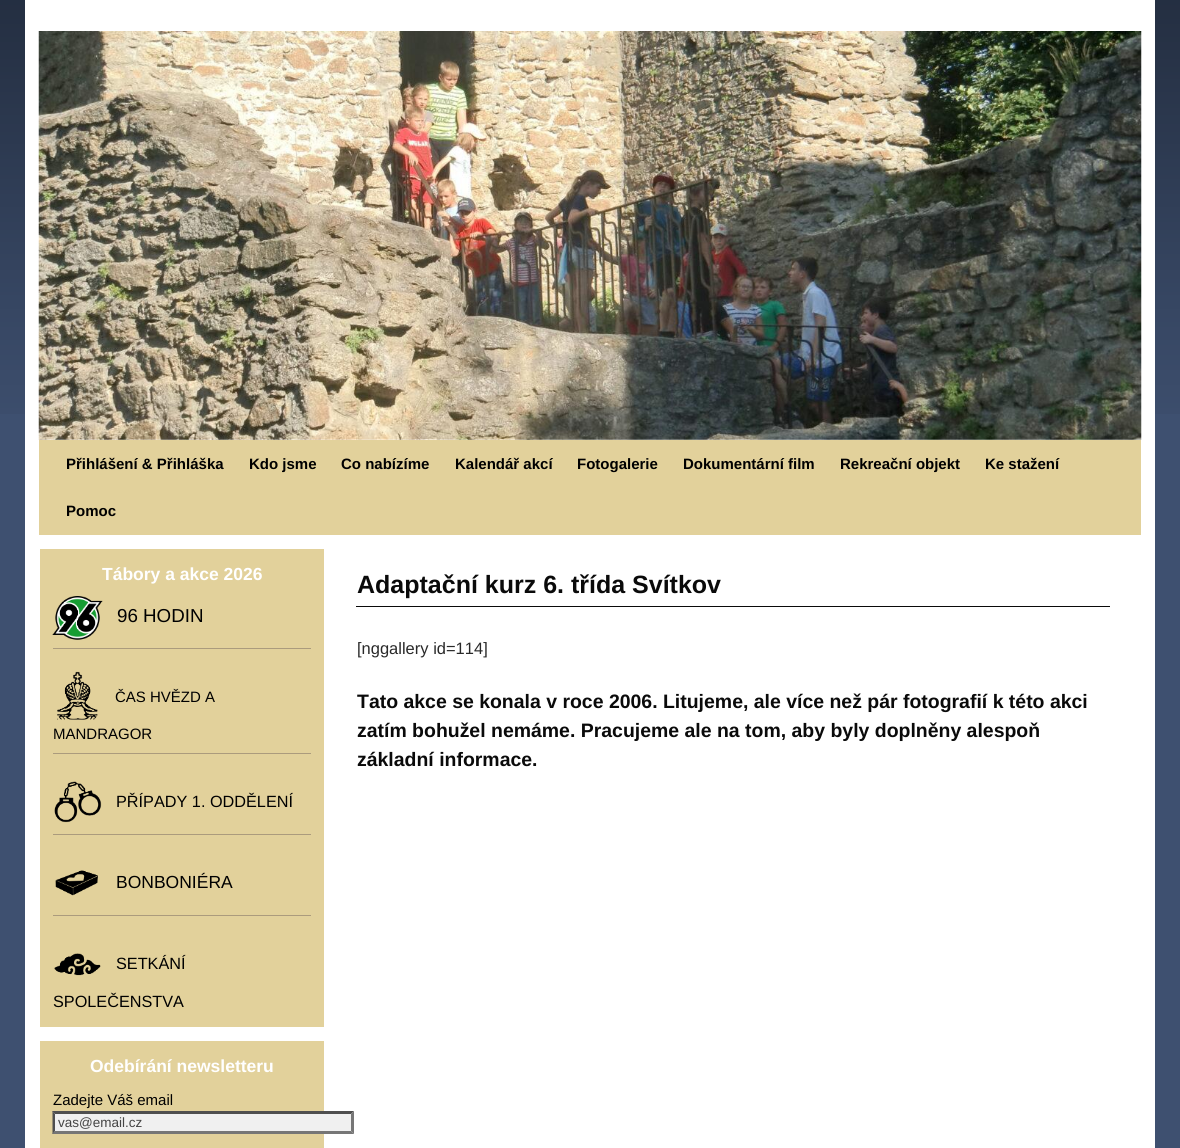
import math
import cairocffi as cairo

surface = cairo.ImageSurface(cairo.FORMAT_RGB24, 1180, 1148)
cr = cairo.Context(surface)
options = cairo.FontOptions()
options.set_hint_metrics(cairo.HINT_METRICS_OFF)
options.set_hint_style(cairo.HINT_STYLE_NONE)
cr.set_font_options(options)
cr.set_miter_limit(4)


def use_color(code):
    cr.set_source_rgb(*(v / 255 for v in bytes.fromhex(code[-6:])))


def picture(path, x, y, w, h):
    cr.save()
    cr.set_source_surface(cairo.ImageSurface.create_from_png(path), x, y)
    cr.rectangle(x, y, w, h)
    cr.fill()
    cr.restore()


use_color("#3e5070")
cr.paint()
picture("img1.png", 0, 0, 1180, 414)
use_color("#ffffff")
cr.rectangle(25, 0, 1130, 1148)
cr.fill()
picture("img2.png", 38, 31, 1104, 409)
use_color("#e2d19b")
cr.rectangle(39, 440, 1102, 95)
cr.fill()
cr.select_font_face("Liberation Sans", cairo.FONT_SLANT_NORMAL, cairo.FONT_WEIGHT_BOLD)
cr.set_font_size(15)
use_color("#000000")
cr.move_to(66, 469)
cr.show_text("Přihlášení & Přihláška")
cr.move_to(249, 469)
cr.show_text("Kdo jsme")
cr.move_to(341, 469)
cr.show_text("Co nabízíme")
cr.move_to(455, 469)
cr.show_text("Kalendář akcí")
cr.move_to(577, 469)
cr.show_text("Fotogalerie")
cr.move_to(683, 469)
cr.show_text("Dokumentární film")
cr.move_to(840, 469)
cr.show_text("Rekreační objekt")
cr.move_to(985, 469)
cr.show_text("Ke stažení")
cr.move_to(66, 516)
cr.show_text("Pomoc")
use_color("#e2d19b")
cr.rectangle(40, 549, 284, 478)
cr.fill()
cr.set_font_size(17.5)
use_color("#ffffff")
cr.move_to(102, 580)
cr.show_text("Tábory a akce 2026")
picture("img3.png", 52, 596, 51, 44)
cr.select_font_face("Liberation Sans")
cr.set_font_size(18.75)
use_color("#000000")
cr.move_to(117, 622)
cr.show_text("96 HODIN")
use_color("#ab9b7d")
cr.rectangle(53, 648, 258, 1)
cr.fill()
picture("img4.png", 57, 671, 41, 49)
cr.set_font_size(15)
use_color("#000000")
cr.move_to(115, 702)
cr.show_text("ČAS HVĚZD A")
cr.move_to(53, 739)
cr.show_text("MANDRAGOR")
use_color("#ab9b7d")
cr.rectangle(53, 753, 258, 1)
cr.fill()
picture("img5.png", 54, 781, 48, 42)
cr.set_font_size(16.25)
use_color("#000000")
cr.move_to(116, 807)
cr.show_text("PŘÍPADY 1. ODDĚLENÍ")
use_color("#ab9b7d")
cr.rectangle(53, 834, 258, 1)
cr.fill()
picture("img6.png", 55, 870, 43, 26)
cr.set_font_size(17.5)
use_color("#000000")
cr.move_to(116, 888)
cr.show_text("BONBONIÉRA")
use_color("#ab9b7d")
cr.rectangle(53, 915, 258, 1)
cr.fill()
picture("img7.png", 54, 953, 47, 23)
cr.set_font_size(16.25)
use_color("#000000")
cr.move_to(116, 969)
cr.show_text("SETKÁNÍ")
cr.move_to(53, 1007)
cr.show_text("SPOLEČENSTVA")
use_color("#e2d19b")
cr.rectangle(40, 1041, 284, 107)
cr.fill()
cr.select_font_face("Liberation Sans", cairo.FONT_SLANT_NORMAL, cairo.FONT_WEIGHT_BOLD)
cr.set_font_size(17.5)
use_color("#ffffff")
cr.move_to(90, 1072)
cr.show_text("Odebírání newsletteru")
cr.select_font_face("Liberation Sans")
cr.set_font_size(15)
use_color("#000000")
cr.move_to(53, 1105)
cr.show_text("Zadejte Váš email")
use_color("#f0f0f0")
cr.rectangle(53, 1111, 301, 23)
cr.fill()
use_color("#4f4f4f")
cr.new_path()
cr.move_to(52, 1111)
cr.line_to(354, 1111)
cr.line_to(351, 1114)
cr.line_to(55, 1114)
cr.close_path()
cr.fill()
use_color("#767676")
cr.new_path()
cr.move_to(354, 1111)
cr.line_to(354, 1134)
cr.line_to(351, 1131)
cr.line_to(351, 1114)
cr.close_path()
cr.fill()
cr.new_path()
cr.move_to(354, 1134)
cr.line_to(52, 1134)
cr.line_to(55, 1131)
cr.line_to(351, 1131)
cr.close_path()
cr.fill()
use_color("#4f4f4f")
cr.new_path()
cr.move_to(52.5, 1134)
cr.line_to(52.5, 1111)
cr.line_to(55, 1114)
cr.line_to(55, 1131)
cr.close_path()
cr.fill()
cr.set_font_size(13.5)
use_color("#444444")
cr.move_to(58, 1127)
cr.show_text("vas@email.cz")
use_color("#0a0a0a")
cr.rectangle(356, 606, 754, 1)
cr.fill()
cr.select_font_face("Liberation Sans", cairo.FONT_SLANT_NORMAL, cairo.FONT_WEIGHT_BOLD)
cr.set_font_size(25)
cr.move_to(357, 593)
cr.show_text("Adaptační kurz 6. třída Svítkov")
cr.select_font_face("Liberation Sans")
cr.set_font_size(16.5)
use_color("#292929")
cr.move_to(357, 654)
cr.show_text("[nggallery id=114]")
cr.select_font_face("Liberation Sans", cairo.FONT_SLANT_NORMAL, cairo.FONT_WEIGHT_BOLD)
cr.set_font_size(19.45)
use_color("#0a0a0a")
cr.move_to(357, 708)
cr.show_text("Tato akce se konala v roce 2006. Litujeme, ale více než pár fotografií k této akci")
cr.move_to(357, 737)
cr.show_text("zatím bohužel nemáme. Pracujeme ale na tom, aby byly doplněny alespoň")
cr.move_to(357, 766)
cr.show_text("základní informace.")
surface.write_to_png("result.png")
